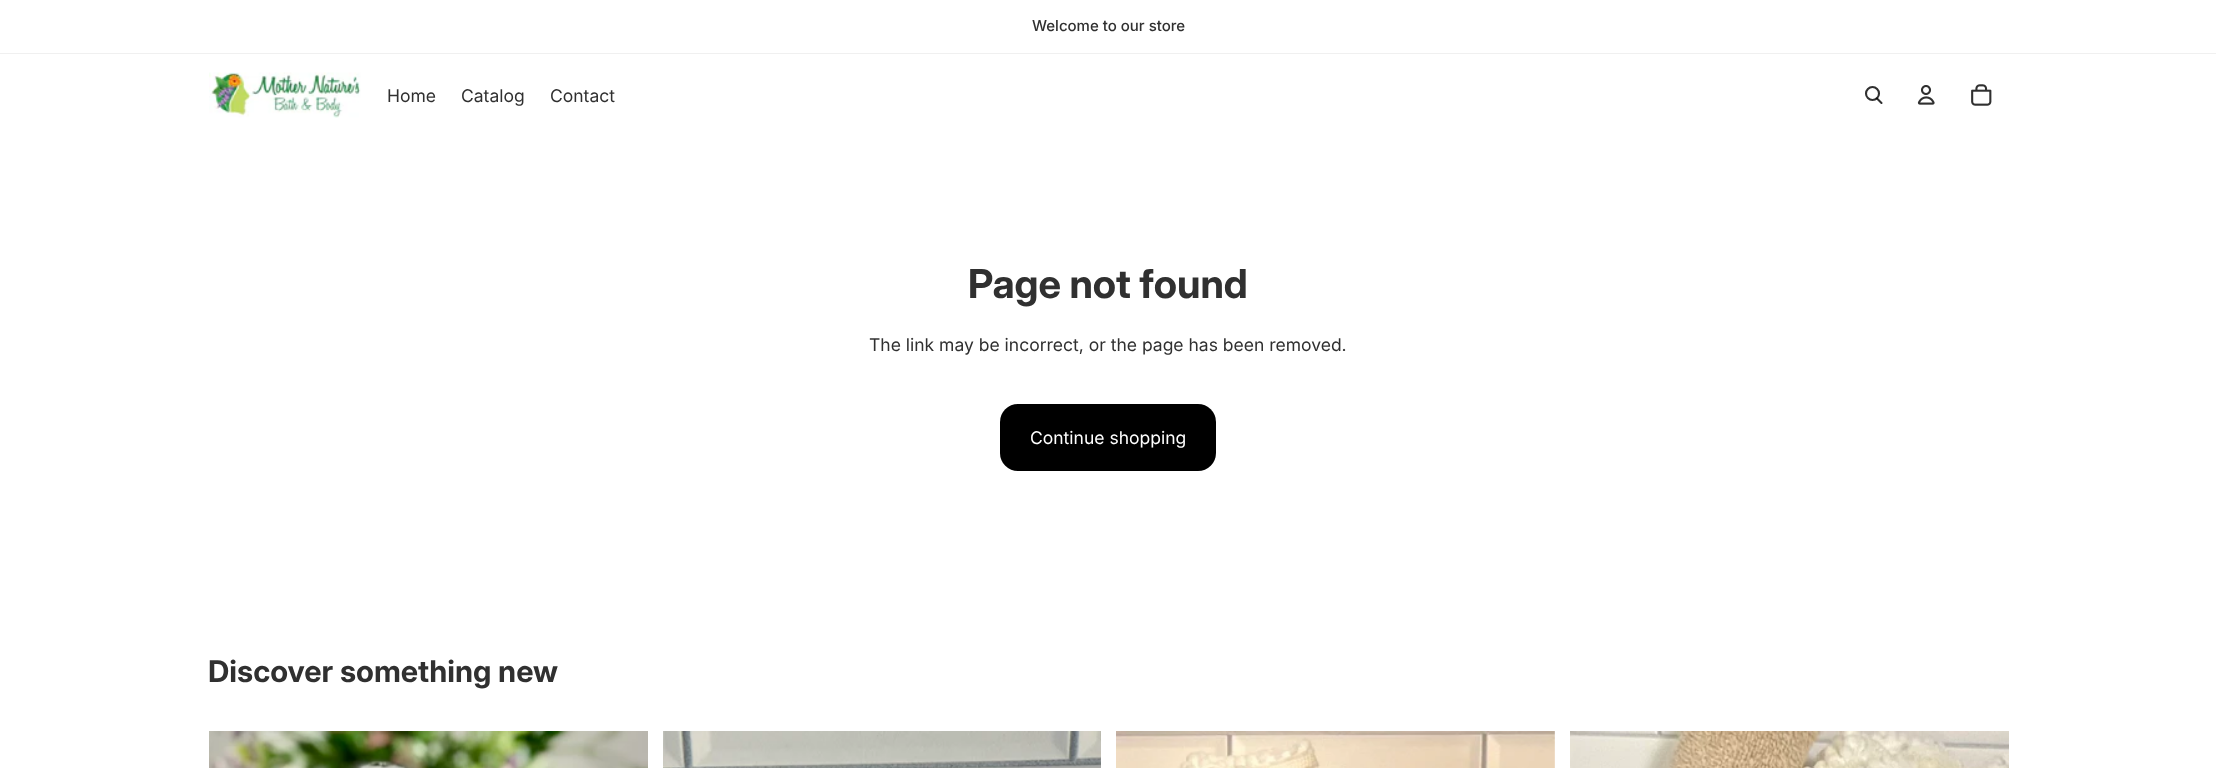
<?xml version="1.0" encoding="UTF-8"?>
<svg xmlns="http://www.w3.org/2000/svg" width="2216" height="768">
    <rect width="100%" height="100%" fill="#FFFFFF"/>
    <rect x="0" y="53" width="2216" height="1" fill="#F0F0F0"/>
    <text x="1032" y="31" font-family="Inter" font-size="15" font-weight="500" fill="#303030">Welcome to our store</text>
    <image x="209" y="72" width="152" height="46" href="img_01.png"/>
    <text x="387" y="102" font-family="Inter" font-size="17.5" fill="#303030">Home</text>
    <text x="461" y="102" font-family="Inter" font-size="17.5" fill="#303030">Catalog</text>
    <text x="550" y="102" font-family="Inter" font-size="17.5" fill="#303030">Contact</text>
    <circle cx="1872.5" cy="93.5" r="6.5" fill="none" stroke="#303030" stroke-width="2.1"/>
    <path d="M 1877 98.5 L 1881.5 103" fill="none" stroke="#000000" stroke-opacity="0.81" stroke-width="2.1" stroke-linecap="round" stroke-linejoin="round"/>
    <image x="1917" y="85" width="18" height="20" href="img_02.png"/>
    <image x="1971" y="84" width="21" height="22" href="img_03.png"/>
    <text x="968" y="298" font-family="Inter" font-size="40" font-weight="700" fill="#303030">Page not found</text>
    <text x="869" y="351" font-family="Inter" font-size="17.5" fill="#303030">The link may be incorrect, or the page has been removed.</text>
    <rect x="1000" y="404" width="216" height="67" rx="18" fill="#000000"/>
    <text x="1030" y="444" font-family="Inter" font-size="17.5" fill="#FFFFFF">Continue shopping</text>
    <text x="208" y="682" font-family="'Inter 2'" font-size="30" font-weight="700" fill="#303030">Discover something new</text>
    <image x="209" y="731" width="439" height="37" href="img_04.png"/>
    <image x="663" y="731" width="438" height="37" href="img_05.png"/>
    <image x="1116" y="731" width="439" height="37" href="img_06.png"/>
    <image x="1570" y="731" width="439" height="37" href="img_07.png"/>
</svg>
